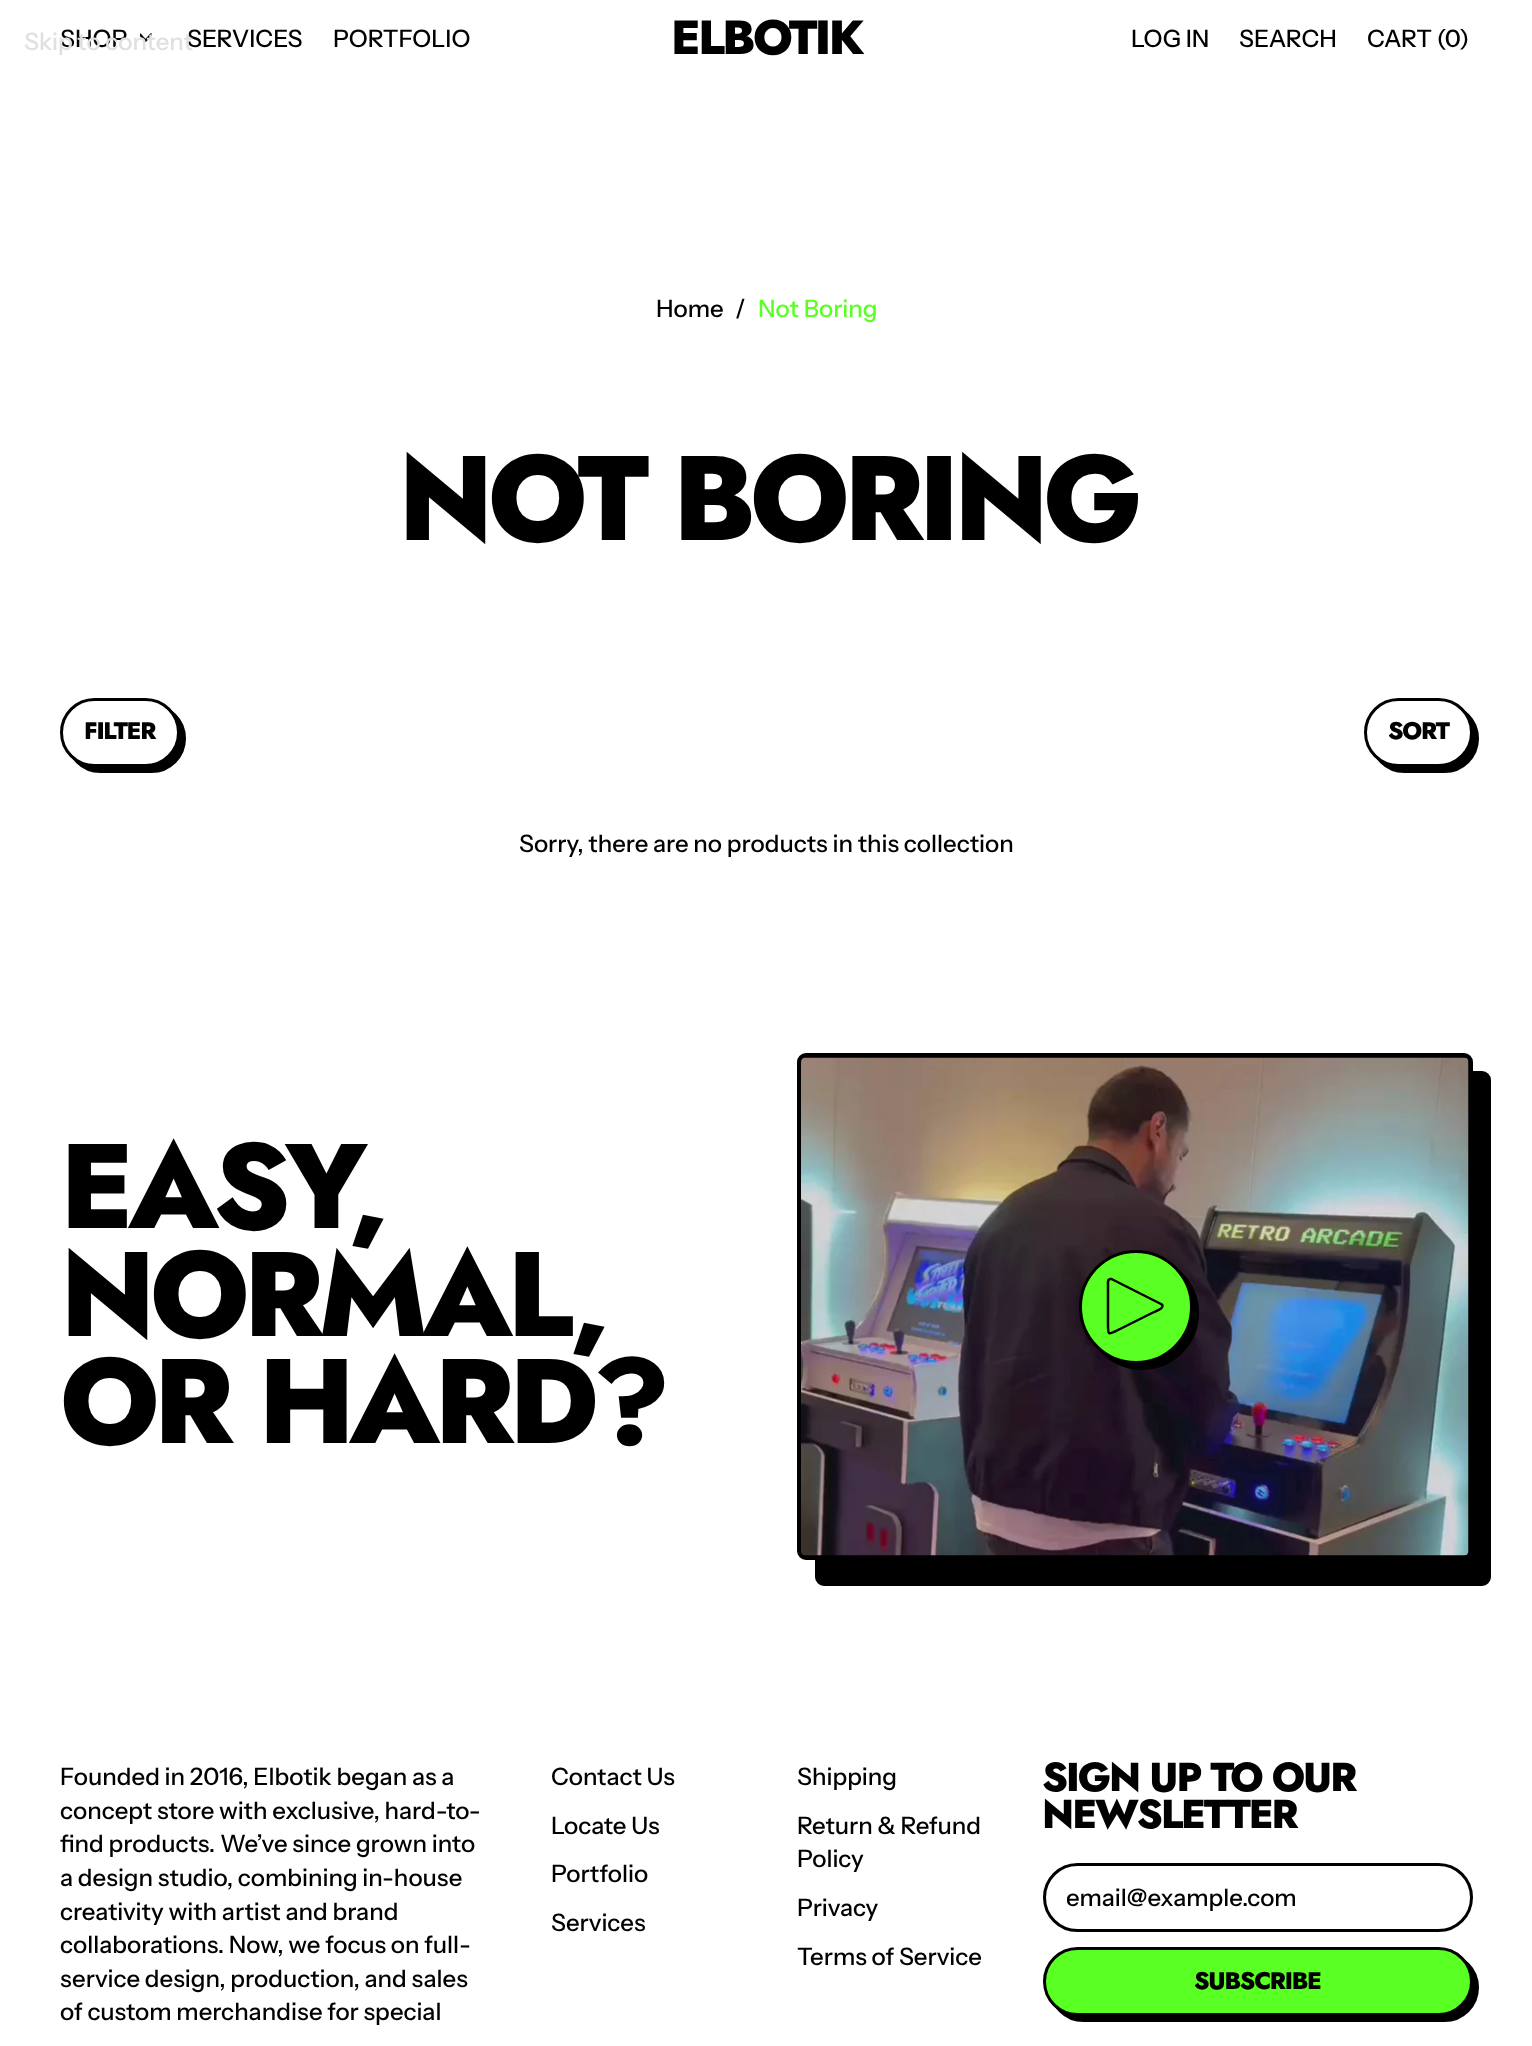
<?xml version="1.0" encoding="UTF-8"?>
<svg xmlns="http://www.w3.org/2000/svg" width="1532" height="2046">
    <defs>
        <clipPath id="clip1"><rect x="140" y="32" width="12" height="12"/></clipPath>
        <clipPath id="clip2"><rect x="1067" y="1883" width="382" height="30"/></clipPath>
    </defs>
    <rect width="100%" height="100%" fill="#FFFFFF"/>
    <text x="60" y="47" font-family="Instrument Sans" font-size="24" font-weight="500" fill="#000000">SHOP</text>
    <g clip-path="url(#clip1)">
        <path d="M 140 34.5 L 144.5 39.5 C 145.5 41 145.5 41 146.5 39.5 L 151 34.5" fill="none" stroke="#000000" stroke-width="2.5" stroke-linecap="round" stroke-linejoin="round"/>
    </g>
    <text x="187" y="47" font-family="Instrument Sans" font-size="24" font-weight="500" fill="#000000">SERVICES</text>
    <text x="333" y="47" font-family="Instrument Sans" font-size="24" font-weight="500" fill="#000000">PORTFOLIO</text>
    <text x="671" y="54" font-family="Jost" font-size="48" font-weight="800" letter-spacing="-2.5" fill="#000000">ELBOTIK</text>
    <text x="1131" y="47" font-family="Instrument Sans" font-size="24" font-weight="500" fill="#000000">LOG IN</text>
    <text x="1239" y="47" font-family="Instrument Sans" font-size="24" font-weight="500" fill="#000000">SEARCH</text>
    <text x="1367" y="47" font-family="Instrument Sans" font-size="24" font-weight="500" fill="#000000">CART (0)</text>
    <text x="24" y="50" font-family="Instrument Sans" font-size="24" font-weight="500" fill="#E0E0E0">Skip to content</text>
    <text x="656" y="317" font-family="Instrument Sans" font-size="24" font-weight="500" fill="#000000">Home</text>
    <text x="735" y="317" font-family="Instrument Sans" font-size="24" font-weight="500" fill="#000000">/</text>
    <text x="758" y="317" font-family="Instrument Sans" font-size="24" font-weight="500" fill="#5AFF24">Not Boring</text>
    <text x="398" y="540" font-family="Jost" font-size="120" font-weight="800" letter-spacing="-6" fill="#000000">NOT BORING</text>
    <rect x="67.5" y="705.5" width="117" height="66" rx="33" fill="#000000" stroke="#000000" stroke-width="3"/>
    <rect x="61.5" y="699.5" width="117" height="66" rx="33" fill="#FFFFFF" stroke="#000000" stroke-width="3"/>
    <text x="84" y="739" font-family="Jost" font-size="24" font-weight="800" letter-spacing="-1.25" fill="#000000">FILTER</text>
    <rect x="1371.5" y="705.5" width="106" height="66" rx="33" fill="#000000" stroke="#000000" stroke-width="3"/>
    <rect x="1365.5" y="699.5" width="106" height="66" rx="33" fill="#FFFFFF" stroke="#000000" stroke-width="3"/>
    <text x="1388" y="739" font-family="Jost" font-size="24" font-weight="800" letter-spacing="-1.25" fill="#000000">SORT</text>
    <text x="519" y="852" font-family="Instrument Sans" font-size="24" font-weight="500" fill="#000000">Sorry, there are no products in this collection</text>
    <text font-family="Jost" font-size="120" font-weight="800" letter-spacing="-6" fill="#000000">
        <tspan x="60" y="1228">EASY,</tspan>
        <tspan x="60" y="1336">NORMAL,</tspan>
        <tspan x="60" y="1443">OR HARD?</tspan>
    </text>
    <rect x="817.5" y="1073.5" width="671" height="510" rx="6.5" fill="#000000" stroke="#000000" stroke-width="5"/>
    <rect x="799.5" y="1055.5" width="671" height="502" rx="6.5" fill="none" stroke="#000000" stroke-width="5"/>
    <image x="801" y="1057" width="668" height="499" href="img_01.png"/>
    <circle cx="1142" cy="1313" r="55.5" fill="#000000" stroke="#000000" stroke-width="3"/>
    <circle cx="1136" cy="1307" r="55.5" fill="#5AFF24" stroke="#000000" stroke-width="3"/>
    <path d="M 1108 1281.5 C 1108 1280 1109.5 1278.5 1111.5 1279 L 1162 1304.5 L 1162.5 1306 C 1162.5 1309.5 1154.5 1311.5 1153 1312.5 L 1120 1329 C 1107.5 1335 1108 1336.5 1108 1322.5 Z" fill="none" stroke="#000000" stroke-width="2.5" stroke-linecap="round" stroke-linejoin="round"/>
    <text font-family="Instrument Sans" font-size="24" font-weight="500" fill="#000000">
        <tspan x="60" y="1785">Founded in 2016, Elbotik began as a</tspan>
        <tspan x="60" y="1819">concept store with exclusive, hard-to-</tspan>
        <tspan x="60" y="1852">find products. We’ve since grown into</tspan>
        <tspan x="60" y="1886">a design studio, combining in-house</tspan>
        <tspan x="60" y="1920">creativity with artist and brand</tspan>
        <tspan x="60" y="1953">collaborations. Now, we focus on full-</tspan>
        <tspan x="60" y="1987">service design, production, and sales</tspan>
        <tspan x="60" y="2020">of custom merchandise for special</tspan>
    </text>
    <text x="551" y="1785" font-family="Instrument Sans" font-size="24" font-weight="500" fill="#000000">Contact Us</text>
    <text x="551" y="1834" font-family="Instrument Sans" font-size="24" font-weight="500" fill="#000000">Locate Us</text>
    <text x="551" y="1882" font-family="Instrument Sans" font-size="24" font-weight="500" fill="#000000">Portfolio</text>
    <text x="551" y="1931" font-family="Instrument Sans" font-size="24" font-weight="500" fill="#000000">Services</text>
    <text x="797" y="1785" font-family="Instrument Sans" font-size="24" font-weight="500" fill="#000000">Shipping</text>
    <text font-family="Instrument Sans" font-size="24" font-weight="500" fill="#000000">
        <tspan x="797" y="1834">Return &amp; Refund</tspan>
        <tspan x="797" y="1867">Policy</tspan>
    </text>
    <text x="797" y="1916" font-family="Instrument Sans" font-size="24" font-weight="500" fill="#000000">Privacy</text>
    <text x="797" y="1965" font-family="Instrument Sans" font-size="24" font-weight="500" fill="#000000">Terms of Service</text>
    <text font-family="Jost" font-size="40.25" font-weight="800" letter-spacing="-2" fill="#000000">
        <tspan x="1042" y="1791">SIGN UP TO OUR</tspan>
        <tspan x="1042" y="1828">NEWSLETTER</tspan>
    </text>
    <rect x="1044.5" y="1864.5" width="427" height="66" rx="33" fill="none" stroke="#000000" stroke-width="3"/>
    <g clip-path="url(#clip2)">
        <text x="1066" y="1906" font-family="Instrument Sans" font-size="24" font-weight="500" fill="#000000">email@example.com</text>
    </g>
    <rect x="1050.5" y="1954.5" width="427" height="66" rx="33" fill="#000000" stroke="#000000" stroke-width="3"/>
    <rect x="1044.5" y="1948.5" width="427" height="66" rx="33" fill="#5AFF24" stroke="#000000" stroke-width="3"/>
    <text x="1194" y="1989" font-family="Jost" font-size="24" font-weight="800" letter-spacing="-1.25" fill="#000000">SUBSCRIBE</text>
</svg>
